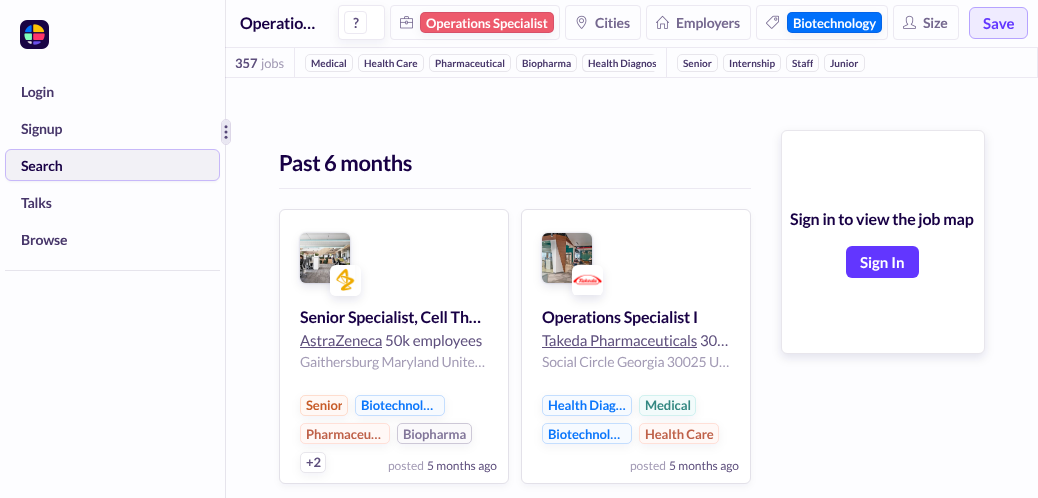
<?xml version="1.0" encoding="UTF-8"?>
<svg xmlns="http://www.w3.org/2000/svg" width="1038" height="498">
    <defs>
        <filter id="blur1" x="-50%" y="-200%" width="200%" height="500%"><feGaussianBlur stdDeviation="1"/></filter>
        <filter id="blur2" x="-50%" y="-200%" width="200%" height="500%"><feGaussianBlur stdDeviation="5"/></filter>
        <clipPath id="clip1"><rect x="305" y="54" width="351" height="18" rx="4"/></clipPath>
        <clipPath id="clip2"><rect x="792" y="50" width="21" height="26"/></clipPath>
        <filter id="blur3" x="-50%" y="-200%" width="200%" height="500%"><feGaussianBlur stdDeviation="3.5"/></filter>
        <clipPath id="clip3"><path d="M 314 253 H 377 V 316 H 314 Z M 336 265 H 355 C 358.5 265 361 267.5 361 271 V 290 C 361 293.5 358.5 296 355 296 H 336 C 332.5 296 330 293.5 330 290 V 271 C 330 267.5 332.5 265 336 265 Z" clip-rule="evenodd"/></clipPath>
        <clipPath id="clip4"><rect x="306" y="392" width="36" height="26"/></clipPath>
    </defs>
    <rect width="100%" height="100%" fill="#FDFDFF"/>
    <image x="20" y="20" width="29" height="29" href="img_01.png"/>
    <rect x="5" y="270" width="215" height="1" fill="#E6E4EC"/>
    <text x="21" y="97" font-family="Lato" font-size="14" font-weight="700" letter-spacing="-0.2" fill="#47366A">Login</text>
    <text x="21" y="134" font-family="Lato" font-size="14" font-weight="700" letter-spacing="-0.2" fill="#47366A">Signup</text>
    <rect x="6" y="152" width="213" height="30" rx="5" fill="#190445" fill-opacity="0.05" filter="url(#blur1)"/>
    <rect x="5" y="149" width="215" height="32" rx="6" fill="#F2F1F6"/>
    <rect x="5.5" y="149.5" width="214" height="31" rx="5.5" fill="none" stroke="#6236FF" stroke-opacity="0.3"/>
    <text x="21" y="171" font-family="Lato" font-size="14" font-weight="700" letter-spacing="-0.2" fill="#180045">Search</text>
    <text x="21" y="208" font-family="Lato" font-size="14" font-weight="700" letter-spacing="-0.2" fill="#47366A">Talks</text>
    <text x="21" y="245" font-family="Lato" font-size="14" font-weight="700" letter-spacing="-0.2" fill="#47366A">Browse</text>
    <rect x="225" y="78" width="1" height="420" fill="#E6E4EC"/>
    <rect x="221.5" y="119.5" width="9" height="25" rx="4.5" fill="none" stroke="#DDD7E8"/>
    <rect x="222" y="120" width="8" height="24" rx="4" fill="#E9E7F2"/>
    <circle cx="226" cy="126.7" r="1.5" fill="#574879"/>
    <circle cx="226" cy="132" r="1.5" fill="#574879"/>
    <circle cx="226" cy="137.3" r="1.5" fill="#574879"/>
    <rect x="225" y="0" width="1" height="78" fill="#E8E6EC"/>
    <rect x="225" y="47" width="813" height="1" fill="#ECE9F2"/>
    <rect x="225" y="47" width="1" height="1" fill="#D7D2E1"/>
    <text x="240" y="29" font-family="Lato" font-size="16" font-weight="700" letter-spacing="-0.2" fill="#180045">Operatio…</text>
    <rect x="390.5" y="5.5" width="169" height="34" rx="3.5" fill="none" stroke="#ECE9F2"/>
    <image x="400" y="16" width="13" height="13" href="img_02.png"/>
    <rect x="305.5" y="54.5" width="47" height="17" rx="4.5" fill="none" stroke="#E8E6EC"/>
    <rect x="358.5" y="54.5" width="65" height="17" rx="4.5" fill="none" stroke="#E8E6EC"/>
    <rect x="338" y="9" width="47" height="35" rx="4" fill="#190445" fill-opacity="0.05" filter="url(#blur2)"/>
    <rect x="338.5" y="5.5" width="46" height="34" rx="3.5" fill="#FFFFFF" stroke="#ECE9F2"/>
    <rect x="344.5" y="11.5" width="22" height="22" rx="3.5" fill="none" stroke="#ECE9F2"/>
    <text x="353" y="28" font-family="Lato" font-size="14" font-weight="700" letter-spacing="-0.2" fill="#5E4F7D">?</text>
    <rect x="420" y="15" width="134" height="21" rx="5" fill="#190445" fill-opacity="0.05" filter="url(#blur2)"/>
    <rect x="420" y="12" width="134" height="21" rx="5" fill="#ED5A6C"/>
    <rect x="420.5" y="12.5" width="133" height="20" rx="4.5" fill="none" stroke="#190445" stroke-opacity="0.1"/>
    <text x="426" y="28" font-family="Lato" font-size="13" font-weight="700" letter-spacing="-0.1" fill="#FFFFFF">Operations Specialist</text>
    <rect x="565.5" y="5.5" width="75" height="34" rx="3.5" fill="none" stroke="#ECE9F2"/>
    <image x="576" y="15" width="11" height="14" href="img_03.png"/>
    <text x="595" y="28" font-family="Lato" font-size="14" font-weight="700" letter-spacing="-0.2" fill="#75688F">Cities</text>
    <rect x="646.5" y="5.5" width="104" height="34" rx="3.5" fill="none" stroke="#ECE9F2"/>
    <image x="656" y="15" width="13" height="14" href="img_04.png"/>
    <text x="676" y="28" font-family="Lato" font-size="14" font-weight="700" letter-spacing="-0.2" fill="#75688F">Employers</text>
    <rect x="756.5" y="5.5" width="131" height="34" rx="3.5" fill="none" stroke="#ECE9F2"/>
    <image x="766" y="15" width="13" height="14" href="img_05.png"/>
    <rect x="787" y="15" width="95" height="21" rx="5" fill="#190445" fill-opacity="0.05" filter="url(#blur2)"/>
    <rect x="787" y="12" width="95" height="21" rx="5" fill="#0070FB"/>
    <rect x="787.5" y="12.5" width="94" height="20" rx="4.5" fill="none" stroke="#190445" stroke-opacity="0.1"/>
    <text x="793" y="28" font-family="Lato" font-size="13" font-weight="700" letter-spacing="-0.1" fill="#FFFFFF">Biotechnology</text>
    <rect x="893.5" y="5.5" width="65" height="34" rx="3.5" fill="none" stroke="#ECE9F2"/>
    <image x="903" y="15" width="13" height="14" href="img_06.png"/>
    <text x="923" y="28" font-family="Lato" font-size="14" font-weight="700" letter-spacing="-0.2" fill="#75688F">Size</text>
    <rect x="969" y="7" width="59" height="32" rx="6" fill="#EFEBFF"/>
    <rect x="969.5" y="7.5" width="58" height="31" rx="5.5" fill="none" stroke="#6236FF" stroke-opacity="0.4"/>
    <text x="983" y="29" font-family="Lato" font-size="15" font-weight="700" fill="#6236FF">Save</text>
    <rect x="225" y="77" width="813" height="1" fill="#ECE9F2"/>
    <rect x="225" y="77" width="1" height="1" fill="#D7D2E1"/>
    <rect x="294" y="48" width="1" height="30" fill="#ECE9F2"/>
    <text x="235" y="68" font-family="Lato" font-size="13" font-weight="700" letter-spacing="-0.1" fill="#5E4F7D">357</text>
    <text x="261" y="68" font-family="Lato" font-size="13" letter-spacing="-0.1" fill="#A39BB5">jobs</text>
    <rect x="666" y="48" width="1" height="30" fill="#ECE9F2"/>
    <text x="311" y="67" font-family="Lato" font-size="10" font-weight="700" fill="#47366A">Medical</text>
    <text x="364" y="67" font-family="Lato" font-size="10" font-weight="700" fill="#47366A">Health Care</text>
    <rect x="429.5" y="54.5" width="81" height="17" rx="4.5" fill="none" stroke="#E8E6EC"/>
    <text x="435" y="67" font-family="Lato" font-size="10" font-weight="700" fill="#47366A">Pharmaceutical</text>
    <rect x="516.5" y="54.5" width="60" height="17" rx="4.5" fill="none" stroke="#E8E6EC"/>
    <text x="522" y="67" font-family="Lato" font-size="10" font-weight="700" fill="#47366A">Biopharma</text>
    <path d="M 587 54 C 584 54 582 56 582 59 V 67 C 582 70 584 72 587 72 H 652 C 653 72 654 72 655 71 H 587 C 585 71 583 69 583 67 V 59 C 583 57 585 55 587 55 H 655 L 652 54 Z" fill="#E8E6EC"/>
    <g clip-path="url(#clip1)">
        <text x="588" y="67" font-family="Lato" font-size="10" font-weight="700" fill="#47366A">Health Diagnos</text>
    </g>
    <rect x="1037" y="48" width="1" height="30" fill="#ECE9F2"/>
    <rect x="677.5" y="54.5" width="40" height="17" rx="4.5" fill="none" stroke="#E8E6EC"/>
    <text x="683" y="67" font-family="Lato" font-size="10" font-weight="700" fill="#47366A">Senior</text>
    <rect x="723.5" y="54.5" width="57" height="17" rx="4.5" fill="none" stroke="#E8E6EC"/>
    <text x="729" y="67" font-family="Lato" font-size="10" font-weight="700" fill="#47366A">Internship</text>
    <rect x="786.5" y="54.5" width="32" height="17" rx="4.5" fill="none" stroke="#E8E6EC"/>
    <g clip-path="url(#clip2)">
        <text x="792" y="67" font-family="Lato" font-size="10" font-weight="700" fill="#47366A">Staff</text>
    </g>
    <rect x="824.5" y="54.5" width="40" height="17" rx="4.5" fill="none" stroke="#E8E6EC"/>
    <text x="830" y="67" font-family="Lato" font-size="10" font-weight="700" fill="#47366A">Junior</text>
    <rect x="279" y="188" width="472" height="1" fill="#ECE9F2"/>
    <text x="279" y="171" font-family="Lato" font-size="22" font-weight="700" letter-spacing="-0.4" fill="#180045">Past 6 months</text>
    <rect x="280" y="213" width="228" height="273" rx="5" fill="#190445" fill-opacity="0.05" filter="url(#blur3)"/>
    <rect x="279.5" y="209.5" width="229" height="274" rx="5.5" fill="#FFFFFF" stroke="#E3E1E9"/>
    <rect x="300" y="233" width="50" height="50" rx="6" fill="#190445" fill-opacity="0.2" filter="url(#blur1)"/>
    <rect x="300" y="237" width="50" height="50" rx="6" fill="#190445" fill-opacity="0.1" filter="url(#blur2)"/>
    <image x="300" y="233" width="50" height="50" href="img_07.png"/>
    <g clip-path="url(#clip3)">
        <rect x="330" y="269" width="31" height="31" rx="6" fill="#190445" fill-opacity="0.1" filter="url(#blur2)"/>
    </g>
    <image x="330" y="265" width="25" height="30" href="img_08.png"/>
    <text x="300" y="323" font-family="Lato" font-size="16" font-weight="700" letter-spacing="-0.2" fill="#180045">Senior Specialist, Cell Th…</text>
    <rect x="300" y="347" width="82" height="1" fill="#5E4F7D"/>
    <text x="300" y="346" font-family="Lato" font-size="15" letter-spacing="-0.1" fill="#5E4F7D">AstraZeneca 50k employees</text>
    <text x="300" y="367" font-family="Lato" font-size="14" letter-spacing="-0.2" fill="#A39BB5">Gaithersburg Maryland Unite…</text>
    <rect x="300" y="398" width="48" height="21" rx="5" fill="#190445" fill-opacity="0.05" filter="url(#blur2)"/>
    <rect x="300" y="395" width="48" height="21" rx="5" fill="#FFF8F5"/>
    <rect x="300.5" y="395.5" width="47" height="20" rx="4.5" fill="none" stroke="#FB7434" stroke-opacity="0.2"/>
    <rect x="355" y="398" width="90" height="21" rx="5" fill="#190445" fill-opacity="0.05" filter="url(#blur2)"/>
    <rect x="355" y="395" width="90" height="21" rx="5" fill="#F6FAFF"/>
    <rect x="355.5" y="395.5" width="89" height="20" rx="4.5" fill="none" stroke="#0070FB" stroke-opacity="0.2"/>
    <rect x="300" y="426" width="90" height="21" rx="5" fill="#190445" fill-opacity="0.05" filter="url(#blur2)"/>
    <g clip-path="url(#clip4)">
        <text x="306" y="410" font-family="Lato" font-size="13" font-weight="700" letter-spacing="-0.1" fill="#C75C29">Senior</text>
    </g>
    <rect x="300" y="423" width="90" height="21" rx="5" fill="#FFF8F6"/>
    <rect x="300.5" y="423.5" width="89" height="20" rx="4.5" fill="none" stroke="#FF8162" stroke-opacity="0.2"/>
    <rect x="397" y="426" width="75" height="21" rx="5" fill="#190445" fill-opacity="0.05" filter="url(#blur2)"/>
    <text x="361" y="410" font-family="Lato" font-size="13" font-weight="700" letter-spacing="-0.1" fill="#0B76FB">Biotechnol…</text>
    <text x="306" y="439" font-family="Lato" font-size="13" font-weight="700" letter-spacing="-0.1" fill="#BF6149">Pharmaceu…</text>
    <rect x="397.5" y="423.5" width="74" height="20" rx="4.5" fill="#FAF9FB" stroke="#CDC8D7"/>
    <text x="403" y="439" font-family="Lato" font-size="13" font-weight="700" letter-spacing="-0.1" fill="#82769A">Biopharma</text>
    <rect x="300" y="455" width="26" height="21" rx="5" fill="#190445" fill-opacity="0.05" filter="url(#blur2)"/>
    <rect x="300.5" y="452.5" width="25" height="20" rx="4.5" fill="#FFFFFF" stroke="#E8E6EC"/>
    <text x="306" y="467" font-family="Lato" font-size="13" font-weight="700" letter-spacing="-0.1" fill="#5E4F7D">+2</text>
    <text x="388" y="470" font-family="Lato" font-size="12" fill="#A39BB5">posted</text>
    <text x="427" y="470" font-family="Lato" font-size="12" fill="#5E4F7D">5 months ago</text>
    <rect x="522" y="213" width="228" height="273" rx="5" fill="#190445" fill-opacity="0.05" filter="url(#blur3)"/>
    <rect x="521.5" y="209.5" width="229" height="274" rx="5.5" fill="#FFFFFF" stroke="#E3E1E9"/>
    <rect x="542" y="233" width="50" height="50" rx="6" fill="#190445" fill-opacity="0.2" filter="url(#blur1)"/>
    <rect x="542" y="237" width="50" height="50" rx="6" fill="#190445" fill-opacity="0.1" filter="url(#blur2)"/>
    <image x="542" y="233" width="50" height="50" href="img_09.png"/>
    <rect x="572" y="269" width="31" height="31" rx="6" fill="#190445" fill-opacity="0.1" filter="url(#blur2)"/>
    <image x="572" y="265" width="31" height="30" href="img_10.png"/>
    <text x="542" y="323" font-family="Lato" font-size="16" font-weight="700" letter-spacing="-0.2" fill="#180045">Operations Specialist I</text>
    <text x="542" y="346" font-family="Lato" font-size="15" letter-spacing="-0.1" fill="#5E4F7D">Takeda Pharmaceuticals 30…</text>
    <rect x="542" y="347" width="155" height="1" fill="#5E4F7D"/>
    <text x="542" y="367" font-family="Lato" font-size="14" letter-spacing="-0.2" fill="#A39BB5">Social Circle Georgia 30025 U…</text>
    <rect x="542" y="398" width="90" height="21" rx="5" fill="#190445" fill-opacity="0.05" filter="url(#blur2)"/>
    <rect x="542" y="395" width="90" height="21" rx="5" fill="#F6FAFF"/>
    <rect x="542.5" y="395.5" width="89" height="20" rx="4.5" fill="none" stroke="#0070FB" stroke-opacity="0.2"/>
    <rect x="639" y="398" width="57" height="21" rx="5" fill="#190445" fill-opacity="0.05" filter="url(#blur2)"/>
    <rect x="639" y="395" width="57" height="21" rx="5" fill="#F2FBFB"/>
    <rect x="639.5" y="395.5" width="56" height="20" rx="4.5" fill="none" stroke="#4ECDC4" stroke-opacity="0.2"/>
    <rect x="542" y="426" width="90" height="21" rx="5" fill="#190445" fill-opacity="0.05" filter="url(#blur2)"/>
    <rect x="542" y="423" width="90" height="21" rx="5" fill="#F6FAFF"/>
    <rect x="542.5" y="423.5" width="89" height="20" rx="4.5" fill="none" stroke="#0070FB" stroke-opacity="0.2"/>
    <rect x="639" y="426" width="80" height="21" rx="5" fill="#190445" fill-opacity="0.05" filter="url(#blur2)"/>
    <text x="548" y="410" font-family="Lato" font-size="13" font-weight="700" letter-spacing="-0.1" fill="#0B76FB">Health Diag…</text>
    <text x="645" y="410" font-family="Lato" font-size="13" font-weight="700" letter-spacing="-0.1" fill="#348882">Medical</text>
    <text x="548" y="439" font-family="Lato" font-size="13" font-weight="700" letter-spacing="-0.1" fill="#0B76FB">Biotechnol…</text>
    <rect x="639" y="423" width="80" height="21" rx="5" fill="#FFF8F6"/>
    <rect x="639.5" y="423.5" width="79" height="20" rx="4.5" fill="none" stroke="#FF8162" stroke-opacity="0.2"/>
    <text x="645" y="439" font-family="Lato" font-size="13" font-weight="700" letter-spacing="-0.1" fill="#BF6149">Health Care</text>
    <text x="630" y="470" font-family="Lato" font-size="12" fill="#A39BB5">posted</text>
    <text x="669" y="470" font-family="Lato" font-size="12" fill="#5E4F7D">5 months ago</text>
    <rect x="781" y="134" width="204" height="224" rx="6" fill="#190445" fill-opacity="0.1" filter="url(#blur2)"/>
    <rect x="781.5" y="130.5" width="203" height="223" rx="5.5" fill="#FFFFFF" stroke="#E8E6EC"/>
    <text x="790" y="225" font-family="Lato" font-size="16" font-weight="700" letter-spacing="-0.2" fill="#180045">Sign in to view the job map</text>
    <rect x="846" y="246" width="73" height="32" rx="6" fill="#6236FF"/>
    <text x="860" y="268" font-family="Lato" font-size="15" font-weight="700" fill="#FFFFFF">Sign In</text>
</svg>
